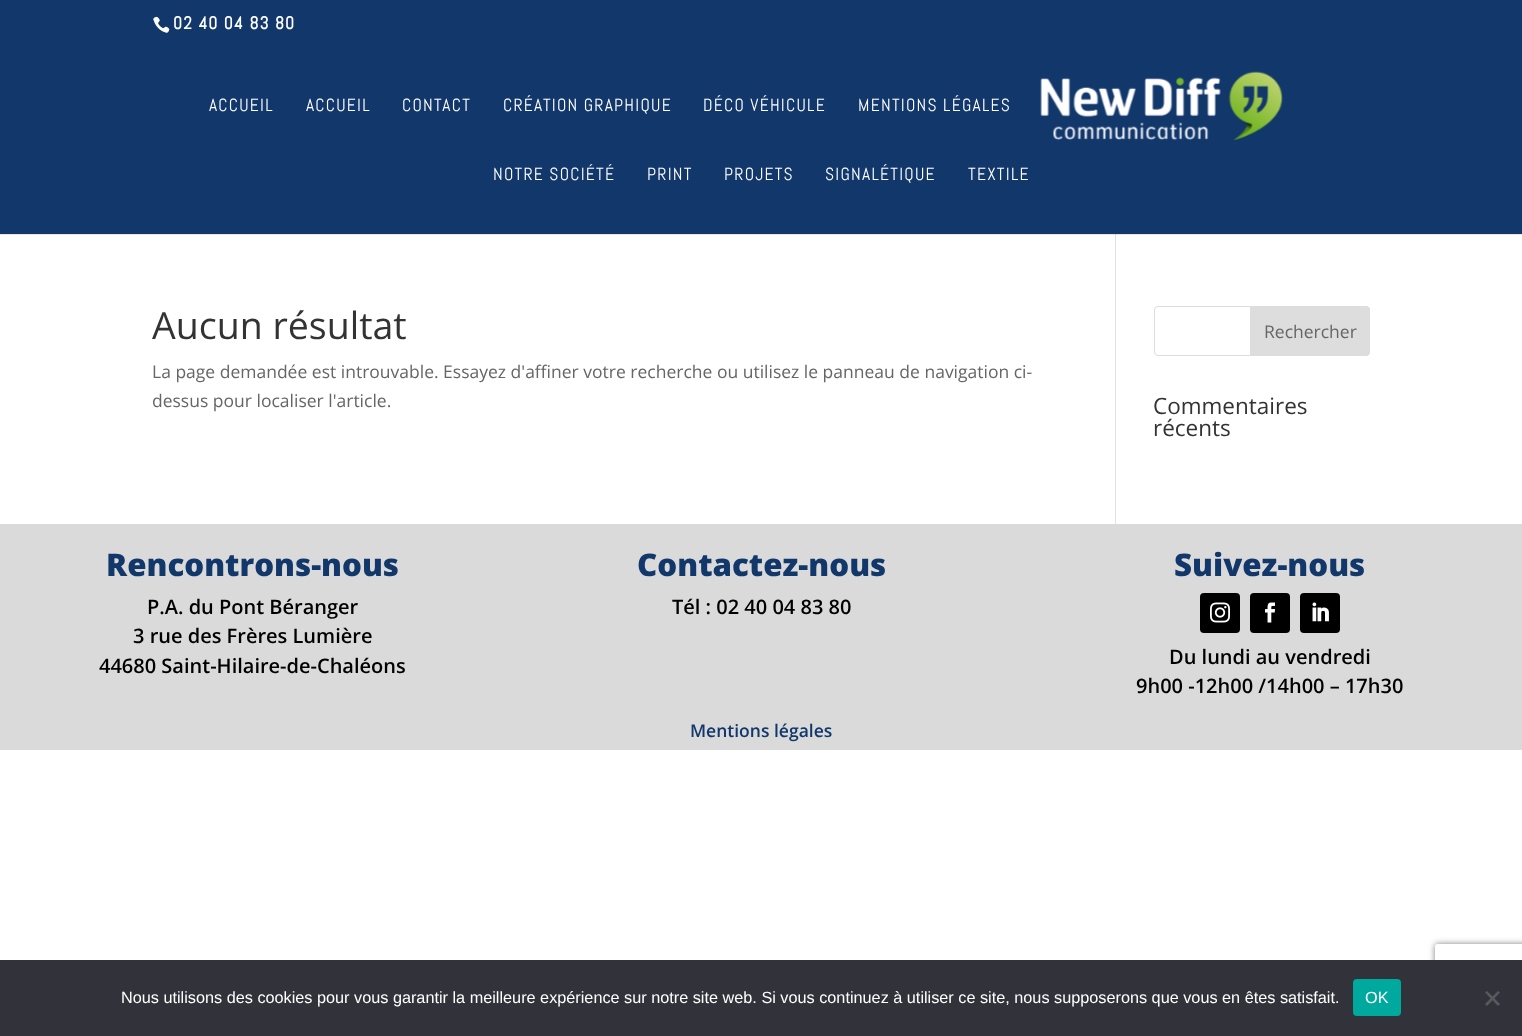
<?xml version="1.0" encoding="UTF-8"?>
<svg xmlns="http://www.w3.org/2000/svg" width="1522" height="1036">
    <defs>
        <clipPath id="clip1"><path d="M 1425 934 H 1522 V 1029 H 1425 Z M 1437.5 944 H 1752.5 C 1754 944 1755 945 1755 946.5 V 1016.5 C 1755 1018 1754 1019 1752.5 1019 H 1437.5 C 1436 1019 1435 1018 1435 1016.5 V 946.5 C 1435 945 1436 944 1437.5 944 Z" clip-rule="evenodd"/></clipPath>
        <filter id="blur1" x="-50%" y="-200%" width="200%" height="500%"><feGaussianBlur stdDeviation="3"/></filter>
    </defs>
    <rect width="100%" height="100%" fill="#FFFFFF"/>
    <rect x="0" y="0" width="1522" height="234" fill="#12376B"/>
    <image x="153" y="16" width="17" height="17" href="img_01.png"/>
    <text x="173" y="29" font-family="Abel" font-size="17.5" font-weight="700" letter-spacing="1.25" fill="#FFFFFF">02 40 04 83 80</text>
    <rect x="1115" y="234" width="1" height="290" fill="#E2E2E2"/>
    <path d="M 0 234 V 235 H 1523 V 46 H 1522 V 234 Z" fill="#000000" fill-opacity="0.1"/>
    <text x="209" y="111" font-family="Abel" font-size="17.5" letter-spacing="1.25" fill="#FFFFFF">ACCUEIL</text>
    <text x="306" y="111" font-family="Abel" font-size="17.5" letter-spacing="1.25" fill="#FFFFFF">ACCUEIL</text>
    <text x="402" y="111" font-family="Abel" font-size="17.5" letter-spacing="1.25" fill="#FFFFFF">CONTACT</text>
    <text x="503" y="111" font-family="Abel" font-size="17.5" letter-spacing="1.25" fill="#FFFFFF">CRÉATION GRAPHIQUE</text>
    <text x="703" y="111" font-family="Abel" font-size="17.5" letter-spacing="1.25" fill="#FFFFFF">DÉCO VÉHICULE</text>
    <text x="858" y="111" font-family="Abel" font-size="17.5" letter-spacing="1.25" fill="#FFFFFF">MENTIONS LÉGALES</text>
    <image x="1040" y="71" width="243" height="73" href="img_02.png"/>
    <text x="493" y="180" font-family="Abel" font-size="17.5" letter-spacing="1.25" fill="#FFFFFF">NOTRE SOCIÉTÉ</text>
    <text x="647" y="180" font-family="Abel" font-size="17.5" letter-spacing="1.25" fill="#FFFFFF">PRINT</text>
    <text x="724" y="180" font-family="Abel" font-size="17.5" letter-spacing="1.25" fill="#FFFFFF">PROJETS</text>
    <text x="825" y="180" font-family="Abel" font-size="17.5" letter-spacing="1.25" fill="#FFFFFF">SIGNALÉTIQUE</text>
    <text x="968" y="180" font-family="Abel" font-size="17.5" letter-spacing="1.25" fill="#FFFFFF">TEXTILE</text>
    <text x="152" y="339" font-family="Open Sans" font-size="37.5" fill="#333333">Aucun résultat</text>
    <text font-family="Open Sans" font-size="17.5" fill="#666666">
        <tspan x="152" y="378">La page demandée est introuvable. Essayez d'affiner votre recherche ou utilisez le panneau de navigation ci-</tspan>
        <tspan x="152" y="407">dessus pour localiser l'article.</tspan>
    </text>
    <rect x="1154.5" y="306.5" width="215" height="49" rx="3.5" fill="none" stroke="#DDDDDD"/>
    <path d="M 1250.5 306.5 H 1366 C 1368 306.5 1369.5 308 1369.5 310 V 352 C 1369.5 354 1368 355.5 1366 355.5 H 1250.5 Z" fill="#DDDDDD" stroke="#DDDDDD"/>
    <text x="1264" y="338" font-family="Open Sans" font-size="17.5" fill="#666666">Rechercher</text>
    <text font-family="Open Sans" font-size="22.5" fill="#333333">
        <tspan x="1153" y="414">Commentaires</tspan>
        <tspan x="1153" y="436">récents</tspan>
    </text>
    <rect x="0" y="524" width="1522" height="226" fill="#DADADA"/>
    <text x="106" y="576" font-family="Open Sans" font-size="31.25" font-weight="800" fill="#12376B">Rencontrons-nous</text>
    <text x="147" y="614" font-family="Open Sans" font-size="20" font-weight="600" fill="#000000">P.A. du Pont Béranger</text>
    <text x="133" y="643" font-family="Open Sans" font-size="20" font-weight="600" fill="#000000">3 rue des Frères Lumière</text>
    <text x="99" y="673" font-family="Open Sans" font-size="20" font-weight="600" fill="#000000">44680 Saint-Hilaire-de-Chaléons</text>
    <text x="637" y="576" font-family="Open Sans" font-size="31.25" font-weight="800" fill="#12376B">Contactez-nous</text>
    <text x="672" y="614" font-family="Open Sans" font-size="20" font-weight="600" fill="#000000">Tél : 02 40 04 83 80</text>
    <text x="690" y="737" font-family="Open Sans" font-size="17.5" font-weight="600" fill="#12376B">Mentions légales</text>
    <text x="1174" y="576" font-family="Open Sans" font-size="31.25" font-weight="800" fill="#12376B">Suivez-nous</text>
    <rect x="1200" y="593" width="40" height="40" rx="4" fill="#000000"/>
    <image x="1210" y="602" width="20" height="21" href="img_03.png"/>
    <rect x="1250" y="593" width="40" height="40" rx="4" fill="#000000"/>
    <image x="1265" y="602" width="10" height="21" href="img_04.png"/>
    <rect x="1300" y="593" width="40" height="40" rx="4" fill="#000000"/>
    <image x="1312" y="602" width="17" height="20" href="img_05.png"/>
    <text x="1169" y="664" font-family="Open Sans" font-size="20" font-weight="600" fill="#000000">Du lundi au vendredi</text>
    <text x="1136" y="693" font-family="Open Sans" font-size="20" font-weight="600" fill="#000000">9h00 -12h00 /14h00 – 17h30</text>
    <g clip-path="url(#clip1)">
        <rect x="1435" y="944" width="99" height="75" rx="2.5" fill="#808080" filter="url(#blur1)"/>
    </g>
    <rect x="0" y="960" width="1522" height="76" fill="#32323A"/>
    <text x="121" y="1003" font-family="Liberation Sans" font-size="16.25" fill="#FFFFFF">Nous utilisons des cookies pour vous garantir la meilleure expérience sur notre site web. Si vous continuez à utiliser ce site, nous supposerons que vous en êtes satisfait.</text>
    <rect x="1353" y="979" width="48" height="37" rx="4" fill="#00A99D"/>
    <text x="1365" y="1003" font-family="Liberation Sans" font-size="16.25" fill="#FFFFFF">OK</text>
    <path d="M 1498 991 L 1500 992.5 L 1487 1006 L 1485 1004 Z" fill="#59595D"/>
    <path d="M 1485 992.5 L 1487 991 L 1500 1004 L 1498 1006 Z" fill="#59595D"/>
</svg>
